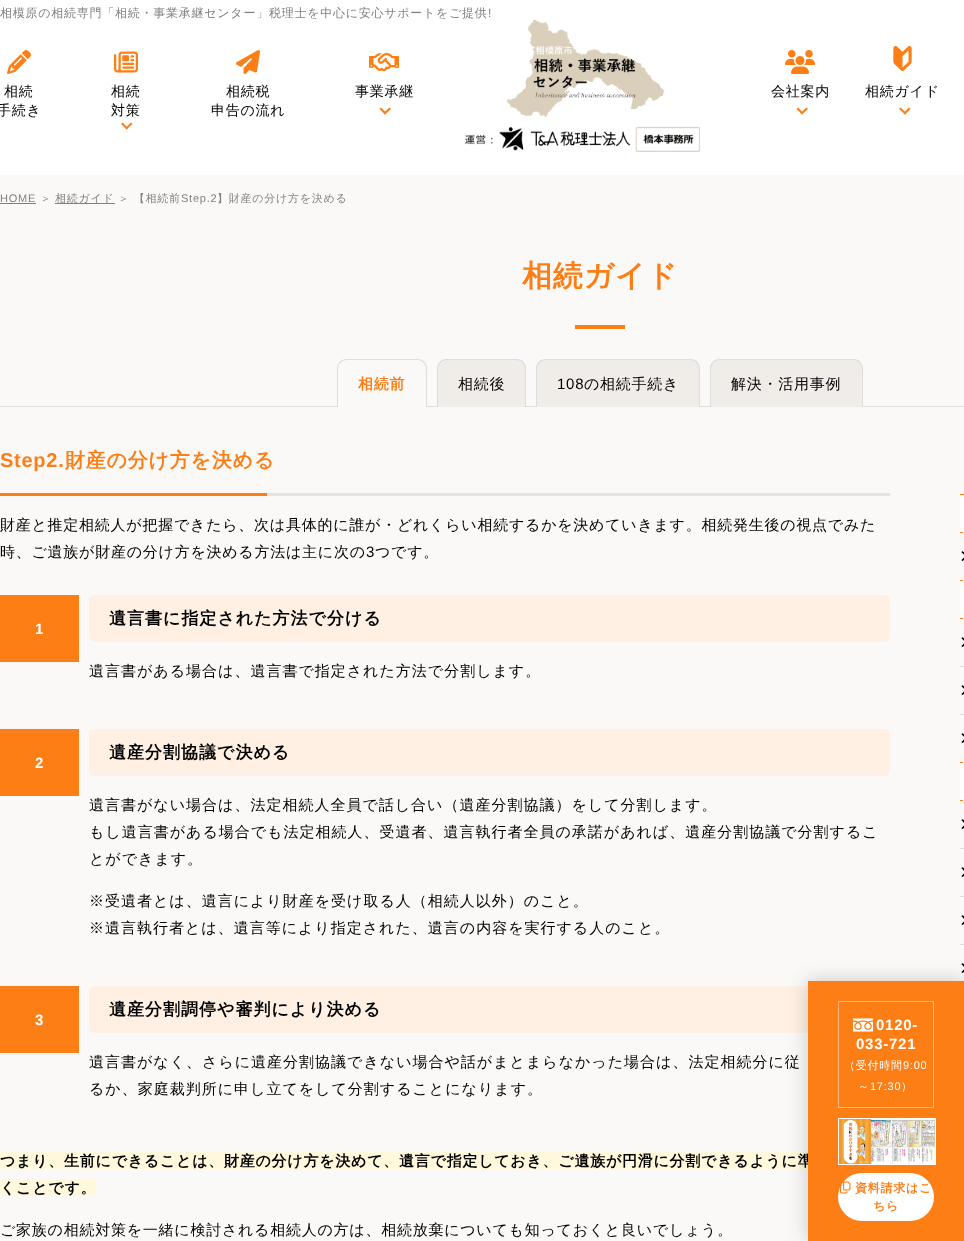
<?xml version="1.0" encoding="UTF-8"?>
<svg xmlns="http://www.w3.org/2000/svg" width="964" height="1241">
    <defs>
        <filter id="blur1" x="-50%" y="-200%" width="200%" height="500%"><feGaussianBlur stdDeviation="10"/></filter>
    </defs>
    <rect width="100%" height="100%" fill="#FFFFFF"/>
    <text x="0" y="17" font-family="WenQuanYi Zen Hei" font-size="12" font-weight="500" letter-spacing="0.75" fill="#808080">相模原の相続専門「相続・事業承継センター」税理士を中心に安心サポートをご提供</text>
    <text x="488" y="17" font-family="Liberation Sans" font-size="12" letter-spacing="0.75" fill="#808080">!</text>
    <image x="7" y="50" width="24" height="24" href="img_01.png"/>
    <text x="4" y="96" font-family="WenQuanYi Zen Hei" font-size="14" font-weight="500" letter-spacing="0.75" fill="#000000">相続</text>
    <text x="-3" y="115" font-family="WenQuanYi Zen Hei" font-size="14" font-weight="500" letter-spacing="0.75" fill="#000000">手続き</text>
    <image x="114" y="51" width="24" height="22" href="img_02.png"/>
    <text font-family="WenQuanYi Zen Hei" font-size="14" font-weight="500" letter-spacing="0.75" fill="#000000">
        <tspan x="111" y="96">相続</tspan>
        <tspan x="111" y="115">対策</tspan>
    </text>
    <path d="M 132.5 124 L 126.5 129.5 L 125.5 128 L 131 122.5 Z" fill="#FD7E14"/>
    <path d="M 128 128 L 126.5 129.5 L 121 124 L 122.5 122.5 Z" fill="#FD7E14"/>
    <image x="236" y="50" width="24" height="24" href="img_03.png"/>
    <text x="226" y="96" font-family="WenQuanYi Zen Hei" font-size="14" font-weight="500" letter-spacing="0.75" fill="#000000">相続税</text>
    <text x="211" y="115" font-family="WenQuanYi Zen Hei" font-size="14" font-weight="500" letter-spacing="0.75" fill="#000000">申告の流れ</text>
    <image x="369" y="53" width="30" height="19" href="img_04.png"/>
    <text x="355" y="96" font-family="WenQuanYi Zen Hei" font-size="14" font-weight="500" letter-spacing="0.75" fill="#000000">事業承継</text>
    <path d="M 391 109 L 385 114.5 L 383.5 113 L 389.5 107.5 Z" fill="#FD7E14"/>
    <path d="M 386.5 113 L 385 114.5 L 379.5 109 L 381 107.5 Z" fill="#FD7E14"/>
    <image x="465" y="20" width="235" height="132" href="img_05.png"/>
    <image x="785" y="50" width="30" height="24" href="img_06.png"/>
    <text x="771" y="96" font-family="WenQuanYi Zen Hei" font-size="14" font-weight="500" letter-spacing="0.75" fill="#000000">会社案内</text>
    <path d="M 808 109 L 802 114.5 L 800.5 113 L 806.5 107.5 Z" fill="#FD7E14"/>
    <path d="M 803.5 113 L 802 114.5 L 796.5 109 L 798 107.5 Z" fill="#FD7E14"/>
    <image x="893" y="46" width="19" height="25" href="img_07.png"/>
    <text x="865" y="96" font-family="WenQuanYi Zen Hei" font-size="14" font-weight="500" letter-spacing="0.75" fill="#000000">相続ガイド</text>
    <path d="M 910.5 109 L 905 114.5 L 903.5 113 L 909 107.5 Z" fill="#FD7E14"/>
    <path d="M 906.5 113 L 905 114.5 L 899 109 L 900.5 107.5 Z" fill="#FD7E14"/>
    <rect x="0" y="175" width="964" height="1066" fill="#FBF9F7"/>
    <text x="0" y="202" font-family="Liberation Sans" font-size="11" letter-spacing="0.75" fill="#808080">HOME</text>
    <rect x="0" y="203" width="36" height="1" fill="#808080"/>
    <text x="40" y="202" font-family="WenQuanYi Zen Hei" font-size="11" font-weight="500" letter-spacing="0.75" fill="#808080">＞</text>
    <rect x="55" y="203" width="60" height="1" fill="#808080"/>
    <text x="55" y="202" font-family="WenQuanYi Zen Hei" font-size="11" font-weight="500" letter-spacing="0.75" fill="#808080">相続ガイド</text>
    <text x="118" y="202" font-family="WenQuanYi Zen Hei" font-size="11" font-weight="500" letter-spacing="0.75" fill="#808080">＞ 【相続前</text>
    <text x="181" y="202" font-family="Liberation Sans" font-size="11" letter-spacing="0.75" fill="#808080">Step.2</text>
    <text x="217" y="202" font-family="WenQuanYi Zen Hei" font-size="11" font-weight="500" letter-spacing="0.75" fill="#808080">】財産の分け方を決める</text>
    <text x="522" y="286" font-family="WenQuanYi Zen Hei" font-size="30" font-weight="700" letter-spacing="0.75" fill="#FD7E15">相続ガイド</text>
    <rect x="575" y="325" width="50" height="4" fill="#FD7E14"/>
    <rect x="0" y="406" width="964" height="1" fill="#DDDDDD"/>
    <path d="M 347 359 H 417 C 422.5 359 427 363.5 427 369 V 407 H 337 V 369 C 337 363.5 341.5 359 347 359 Z" fill="#FBF9F7"/>
    <path d="M 347 359 H 417 C 423 359 427 363 427 369 V 407 H 337 V 369 C 337 363 341 359 347 359 Z M 347 360 H 417 C 422 360 426 364 426 369 V 407 H 338 V 369 C 338 364 342 360 347 360 Z" fill="#DDDDDD" fill-rule="evenodd"/>
    <text x="358" y="389" font-family="WenQuanYi Zen Hei" font-size="15" font-weight="700" letter-spacing="0.75" fill="#FD7E15">相続前</text>
    <path d="M 447 359 H 516 C 521.5 359 526 363.5 526 369 V 407 H 437 V 369 C 437 363.5 441.5 359 447 359 Z" fill="#F0ECE8"/>
    <path d="M 447 359 H 516 C 522 359 526 363 526 369 V 407 H 437 V 369 C 437 363 441 359 447 359 Z M 447 360 H 516 C 521 360 525 364 525 369 V 407 H 438 V 369 C 438 364 442 360 447 360 Z" fill="#DDDDDD" fill-rule="evenodd"/>
    <text x="458" y="389" font-family="WenQuanYi Zen Hei" font-size="15" font-weight="500" letter-spacing="0.75" fill="#000000">相続後</text>
    <path d="M 546 359 H 690 C 695.5 359 700 363.5 700 369 V 407 H 536 V 369 C 536 363.5 540.5 359 546 359 Z" fill="#F0ECE8"/>
    <path d="M 546 359 H 690 C 696 359 700 363 700 369 V 407 H 536 V 369 C 536 363 540 359 546 359 Z M 546 360 H 690 C 695 360 699 364 699 369 V 407 H 537 V 369 C 537 364 541 360 546 360 Z" fill="#DDDDDD" fill-rule="evenodd"/>
    <text x="557" y="389" font-family="Liberation Sans" font-size="15" letter-spacing="0.75" fill="#000000">108</text>
    <text x="584" y="389" font-family="WenQuanYi Zen Hei" font-size="15" font-weight="500" letter-spacing="0.75" fill="#000000">の相続手続き</text>
    <path d="M 720 359 H 853 C 858.5 359 863 363.5 863 369 V 407 H 710 V 369 C 710 363.5 714.5 359 720 359 Z" fill="#F0ECE8"/>
    <path d="M 720 359 H 853 C 859 359 863 363 863 369 V 407 H 710 V 369 C 710 363 714 359 720 359 Z M 720 360 H 853 C 858 360 862 364 862 369 V 407 H 711 V 369 C 711 364 715 360 720 360 Z" fill="#DDDDDD" fill-rule="evenodd"/>
    <text x="731" y="389" font-family="WenQuanYi Zen Hei" font-size="15" font-weight="500" letter-spacing="0.75" fill="#000000">解決・活用事例</text>
    <rect x="267" y="493" width="623" height="3" fill="#E3E3E3"/>
    <text x="0" y="467" font-family="Liberation Sans" font-size="20" font-weight="700" letter-spacing="0.75" fill="#FD7E15">Step2.</text>
    <text x="65" y="467" font-family="WenQuanYi Zen Hei" font-size="20" font-weight="700" letter-spacing="0.75" fill="#FD7E15">財産の分け方を決める</text>
    <rect x="0" y="493" width="267" height="3" fill="#FD7E14"/>
    <text font-family="WenQuanYi Zen Hei" font-size="15" font-weight="500" letter-spacing="0.75" fill="#000000">
        <tspan x="0" y="530">財産と推定相続人が把握できたら、次は具体的に誰が・どれくらい相続するかを決めていきます。相続発生後の視点でみた</tspan>
        <tspan x="0" y="557">時、ご遺族が財産の分け方を決める方法は主に次の</tspan>
    </text>
    <text x="366" y="557" font-family="Liberation Sans" font-size="15" letter-spacing="0.75" fill="#000000">3</text>
    <text x="375" y="557" font-family="WenQuanYi Zen Hei" font-size="15" font-weight="500" letter-spacing="0.75" fill="#000000">つです。</text>
    <rect x="0" y="595" width="79" height="67" fill="#FD7E15"/>
    <text x="35" y="634" font-family="Liberation Sans" font-size="15" font-weight="700" letter-spacing="1" fill="#FFFFFF">1</text>
    <rect x="89" y="595" width="801" height="47" rx="5" fill="#FFF0E3"/>
    <text x="109" y="624" font-family="WenQuanYi Zen Hei" font-size="17" font-weight="700" letter-spacing="1" fill="#000000">遺言書に指定された方法で分ける</text>
    <text x="89" y="676" font-family="WenQuanYi Zen Hei" font-size="15" font-weight="500" letter-spacing="1" fill="#000000">遺言書がある場合は、遺言書で指定された方法で分割します。</text>
    <rect x="0" y="729" width="79" height="67" fill="#FD7E15"/>
    <text x="35" y="768" font-family="Liberation Sans" font-size="15" font-weight="700" letter-spacing="1" fill="#FFFFFF">2</text>
    <rect x="89" y="729" width="801" height="47" rx="5" fill="#FFF0E3"/>
    <text x="109" y="758" font-family="WenQuanYi Zen Hei" font-size="17" font-weight="700" letter-spacing="1" fill="#000000">遺産分割協議で決める</text>
    <text font-family="WenQuanYi Zen Hei" font-size="15" font-weight="500" letter-spacing="1" fill="#000000">
        <tspan x="89" y="810">遺言書がない場合は、法定相続人全員で話し合い（遺産分割協議）をして分割します。</tspan>
        <tspan x="89" y="837">もし遺言書がある場合でも法定相続人、受遺者、遺言執行者全員の承諾があれば、遺産分割協議で分割するこ</tspan>
        <tspan x="89" y="864">とができます。</tspan>
    </text>
    <text font-family="WenQuanYi Zen Hei" font-size="15" font-weight="500" letter-spacing="1" fill="#000000">
        <tspan x="89" y="906">※受遺者とは、遺言により財産を受け取る人（相続人以外）のこと。</tspan>
        <tspan x="89" y="933">※遺言執行者とは、遺言等により指定された、遺言の内容を実行する人のこと。</tspan>
    </text>
    <rect x="0" y="986" width="79" height="67" fill="#FD7E15"/>
    <text x="35" y="1025" font-family="Liberation Sans" font-size="15" font-weight="700" letter-spacing="1" fill="#FFFFFF">3</text>
    <rect x="89" y="986" width="801" height="47" rx="5" fill="#FFF0E3"/>
    <text x="109" y="1015" font-family="WenQuanYi Zen Hei" font-size="17" font-weight="700" letter-spacing="1" fill="#000000">遺産分割調停や審判により決める</text>
    <text font-family="WenQuanYi Zen Hei" font-size="15" font-weight="500" letter-spacing="1" fill="#000000">
        <tspan x="89" y="1067">遺言書がなく、さらに遺産分割協議できない場合や話がまとまらなかった場合は、法定相続分に従</tspan>
        <tspan x="89" y="1094">るか、家庭裁判所に申し立てをして分割することになります。</tspan>
    </text>
    <rect x="0" y="1152" width="808" height="17" fill="#FFF8DC"/>
    <text x="0" y="1166" font-family="WenQuanYi Zen Hei" font-size="15" font-weight="700" letter-spacing="0.75" fill="#000000">つまり、生前にできることは、財産の分け方を決めて、遺言で指定しておき、ご遺族が円滑に分割できるように準</text>
    <rect x="0" y="1179" width="96" height="17" fill="#FFF8DC"/>
    <text x="0" y="1193" font-family="WenQuanYi Zen Hei" font-size="15" font-weight="700" letter-spacing="0.75" fill="#000000">くことです。</text>
    <text x="0" y="1235" font-family="WenQuanYi Zen Hei" font-size="15" font-weight="500" letter-spacing="0.75" fill="#000000">ご家族の相続対策を一緒に検討される相続人の方は、相続放棄についても知っておくと良いでしょう。</text>
    <rect x="960" y="494" width="4" height="39" fill="#FFFFFF"/>
    <path d="M 960 532.5 H 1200" fill="none" stroke="#FD7E14" stroke-dasharray="3 2.04"/>
    <rect x="960" y="494" width="4" height="1" fill="#FD7E14"/>
    <image x="961" y="551" width="3" height="10" href="img_08.png"/>
    <rect x="960" y="580" width="4" height="39" fill="#FFFFFF"/>
    <path d="M 960 580.5 H 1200 M 960 618.5 H 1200" fill="none" stroke="#FD7E14" stroke-dasharray="3 2.04"/>
    <rect x="960" y="666" width="4" height="1" fill="#DDDDDD"/>
    <image x="961" y="637" width="3" height="10" href="img_08.png"/>
    <rect x="960" y="714" width="4" height="1" fill="#DDDDDD"/>
    <image x="961" y="685" width="3" height="10" href="img_08.png"/>
    <image x="961" y="733" width="3" height="10" href="img_08.png"/>
    <rect x="960" y="762" width="4" height="39" fill="#FFFFFF"/>
    <path d="M 960 762.5 H 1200 M 960 800.5 H 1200" fill="none" stroke="#FD7E14" stroke-dasharray="3 2.04"/>
    <rect x="960" y="848" width="4" height="1" fill="#DDDDDD"/>
    <image x="961" y="819" width="3" height="10" href="img_08.png"/>
    <rect x="960" y="896" width="4" height="1" fill="#DDDDDD"/>
    <image x="961" y="867" width="3" height="10" href="img_08.png"/>
    <rect x="960" y="944" width="4" height="1" fill="#DDDDDD"/>
    <image x="961" y="915" width="3" height="10" href="img_08.png"/>
    <image x="961" y="963" width="3" height="10" href="img_08.png"/>
    <rect x="808" y="981" width="156" height="260" fill="#000000" fill-opacity="0.2" filter="url(#blur1)"/>
    <rect x="808" y="981" width="156" height="260" fill="#FD7E14"/>
    <rect x="838.5" y="1001.5" width="95" height="106" fill="none" stroke="#FFB97F"/>
    <image x="853" y="1018" width="20" height="14" href="img_09.png"/>
    <text x="876" y="1030" font-family="Liberation Sans" font-size="15" font-weight="700" letter-spacing="0.75" fill="#FFFFFF">0120-</text>
    <text x="856" y="1049" font-family="Liberation Sans" font-size="15" font-weight="700" letter-spacing="0.75" fill="#FFFFFF">033-721</text>
    <text x="844" y="1069" font-family="WenQuanYi Zen Hei" font-size="11" font-weight="500" letter-spacing="0.75" fill="#FFFFFF">（受付時間</text>
    <text x="903" y="1069" font-family="Liberation Sans" font-size="11" letter-spacing="0.75" fill="#FFFFFF">9:00</text>
    <text x="858" y="1090" font-family="WenQuanYi Zen Hei" font-size="11" font-weight="500" letter-spacing="0.75" fill="#FFFFFF">～</text>
    <text x="870" y="1090" font-family="Liberation Sans" font-size="11" letter-spacing="0.75" fill="#FFFFFF">17:30</text>
    <text x="901" y="1090" font-family="WenQuanYi Zen Hei" font-size="11" font-weight="500" letter-spacing="0.75" fill="#FFFFFF">）</text>
    <rect x="838.5" y="1118.5" width="97" height="46" fill="none" stroke="#FFFFFF"/>
    <image x="838" y="1118" width="97" height="46" href="img_10.png"/>
    <rect x="838" y="1173" width="96" height="48" rx="24" fill="#FFFFFF"/>
    <image x="840" y="1181" width="11" height="13" href="img_11.png"/>
    <text x="855" y="1192" font-family="WenQuanYi Zen Hei" font-size="12" font-weight="700" letter-spacing="0.75" fill="#FD7E15">資料請求はこ</text>
    <text x="873" y="1210" font-family="WenQuanYi Zen Hei" font-size="12" font-weight="700" letter-spacing="0.75" fill="#FD7E15">ちら</text>
</svg>
